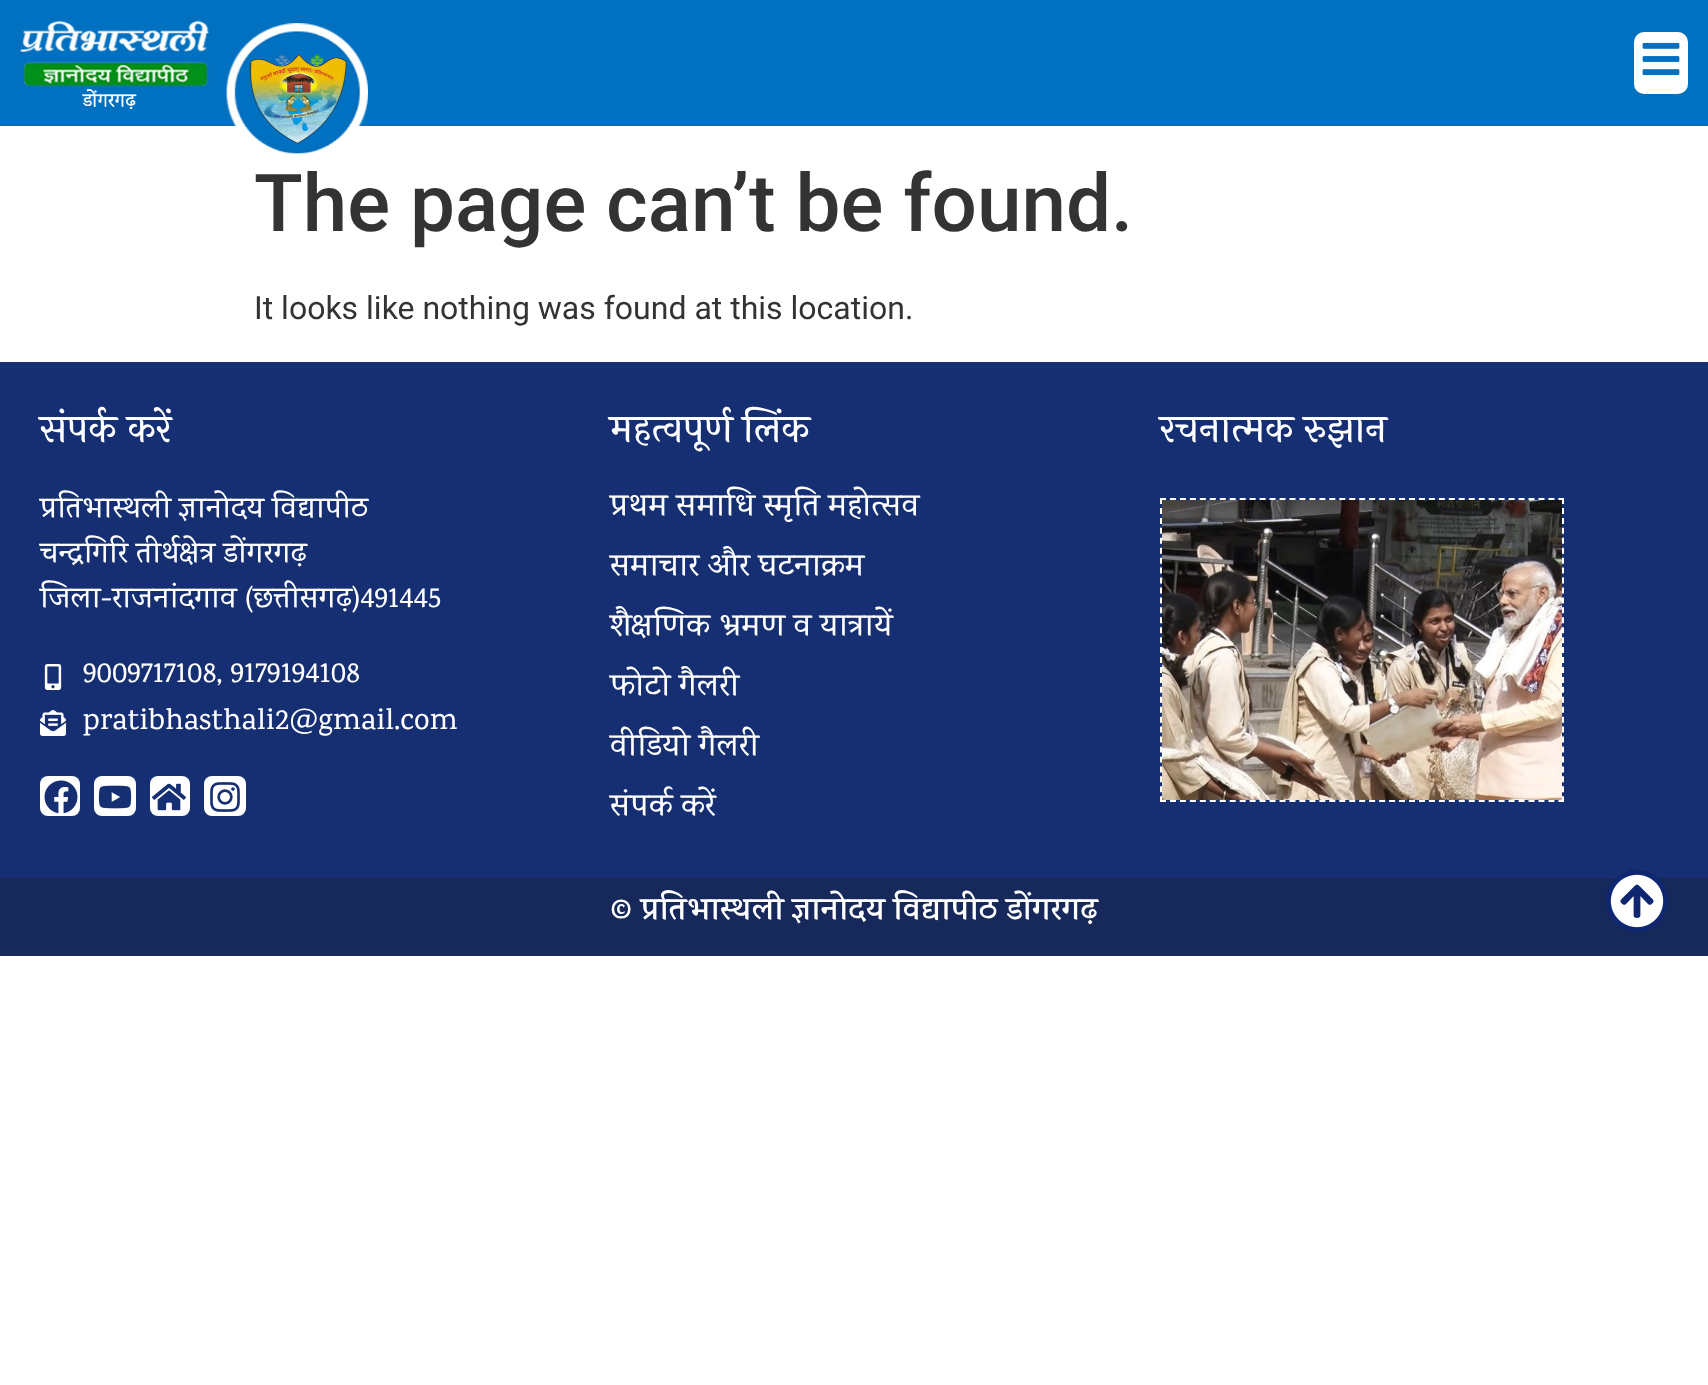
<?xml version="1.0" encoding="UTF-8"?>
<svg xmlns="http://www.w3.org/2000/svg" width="1708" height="1385">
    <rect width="100%" height="100%" fill="#FFFFFF"/>
    <rect x="0" y="0" width="1708" height="126" fill="#0070C0"/>
    <image x="20" y="20" width="348" height="134" href="img_01.png"/>
    <rect x="1634" y="32" width="54" height="62" rx="10" fill="#FFFFFF"/>
    <image x="1642" y="42" width="38" height="34" href="img_02.png"/>
    <text x="254" y="231" font-family="Roboto" font-size="80" font-weight="500" fill="#333333">The page can’t be found.</text>
    <text x="254" y="319" font-family="Roboto" font-size="32" fill="#333333">It looks like nothing was found at this location.</text>
    <rect x="0" y="362" width="1708" height="516" fill="#152F72"/>
    <text x="40" y="442" font-family="Laila" font-size="38" font-weight="500" fill="#FFFFFF">संपर्क करें</text>
    <text font-family="Karma" font-size="30" font-weight="500" fill="#FFFFFF">
        <tspan x="40" y="517">प्रतिभास्थली ज्ञानोदय विद्यापीठ</tspan>
        <tspan x="40" y="562">चन्द्रगिरि तीर्थक्षेत्र डोंगरगढ़</tspan>
        <tspan x="40" y="607">जिला-राजनांदगाव (छत्तीसगढ़)491445</tspan>
    </text>
    <image x="44" y="664" width="18" height="26" href="img_03.png"/>
    <text x="83" y="682" font-family="Karma" font-size="30" font-weight="500" fill="#FFFFFF">9009717108, 9179194108</text>
    <image x="40" y="710" width="26" height="26" href="img_04.png"/>
    <text x="83" y="729" font-family="Karma" font-size="30" font-weight="500" fill="#FFFFFF">pratibhasthali2@gmail.com</text>
    <rect x="40" y="776" width="40" height="40" rx="8" fill="#FFFFFF"/>
    <image x="44" y="780" width="34" height="34" href="img_05.png"/>
    <rect x="94" y="776" width="42" height="40" rx="8" fill="#FFFFFF"/>
    <image x="98" y="785" width="34" height="24" href="img_06.png"/>
    <rect x="150" y="776" width="40" height="40" rx="8" fill="#FFFFFF"/>
    <image x="152" y="783" width="34" height="28" href="img_07.png"/>
    <rect x="204" y="776" width="42" height="40" rx="8" fill="#FFFFFF"/>
    <image x="210" y="782" width="30" height="30" href="img_08.png"/>
    <text x="610" y="442" font-family="Laila" font-size="38" font-weight="500" fill="#FFFFFF">महत्वपूर्ण लिंक</text>
    <text font-family="Karma" font-size="32" font-weight="500" fill="#FFFFFF">
        <tspan x="610" y="515">प्रथम समाधि स्मृति महोत्सव</tspan>
        <tspan x="610" y="575">समाचार और घटनाक्रम</tspan>
        <tspan x="610" y="635">शैक्षणिक भ्रमण व यात्रायें</tspan>
        <tspan x="610" y="695">फोटो गैलरी</tspan>
        <tspan x="610" y="755">वीडियो गैलरी</tspan>
        <tspan x="610" y="815">संपर्क करें</tspan>
    </text>
    <text x="1160" y="442" font-family="Laila" font-size="38" font-weight="500" fill="#FFFFFF">रचनात्मक रुझान</text>
    <path d="M 1160 499 H 1564" fill="none" stroke="#FFFFFF" stroke-width="2" stroke-dasharray="6 3.96"/>
    <path d="M 1563 498 V 802" fill="none" stroke="#FFFFFF" stroke-width="2" stroke-dasharray="6 3.94"/>
    <path d="M 1160 801 H 1564" fill="none" stroke="#FFFFFF" stroke-width="2" stroke-dasharray="6 3.96"/>
    <path d="M 1161 498 V 802" fill="none" stroke="#FFFFFF" stroke-width="2" stroke-dasharray="6 3.94"/>
    <image x="1162" y="500" width="400" height="300" href="img_09.png"/>
    <rect x="0" y="878" width="1708" height="78" fill="#16295A"/>
    <text x="610" y="919" font-family="Karma" font-size="32" font-weight="600" fill="#FFFFFF">© प्रतिभास्थली ज्ञानोदय विद्यापीठ डोंगरगढ़</text>
    <circle cx="1637" cy="901" r="31" fill="#0E2770"/>
    <image x="1610" y="874" width="54" height="54" href="img_10.png"/>
</svg>
